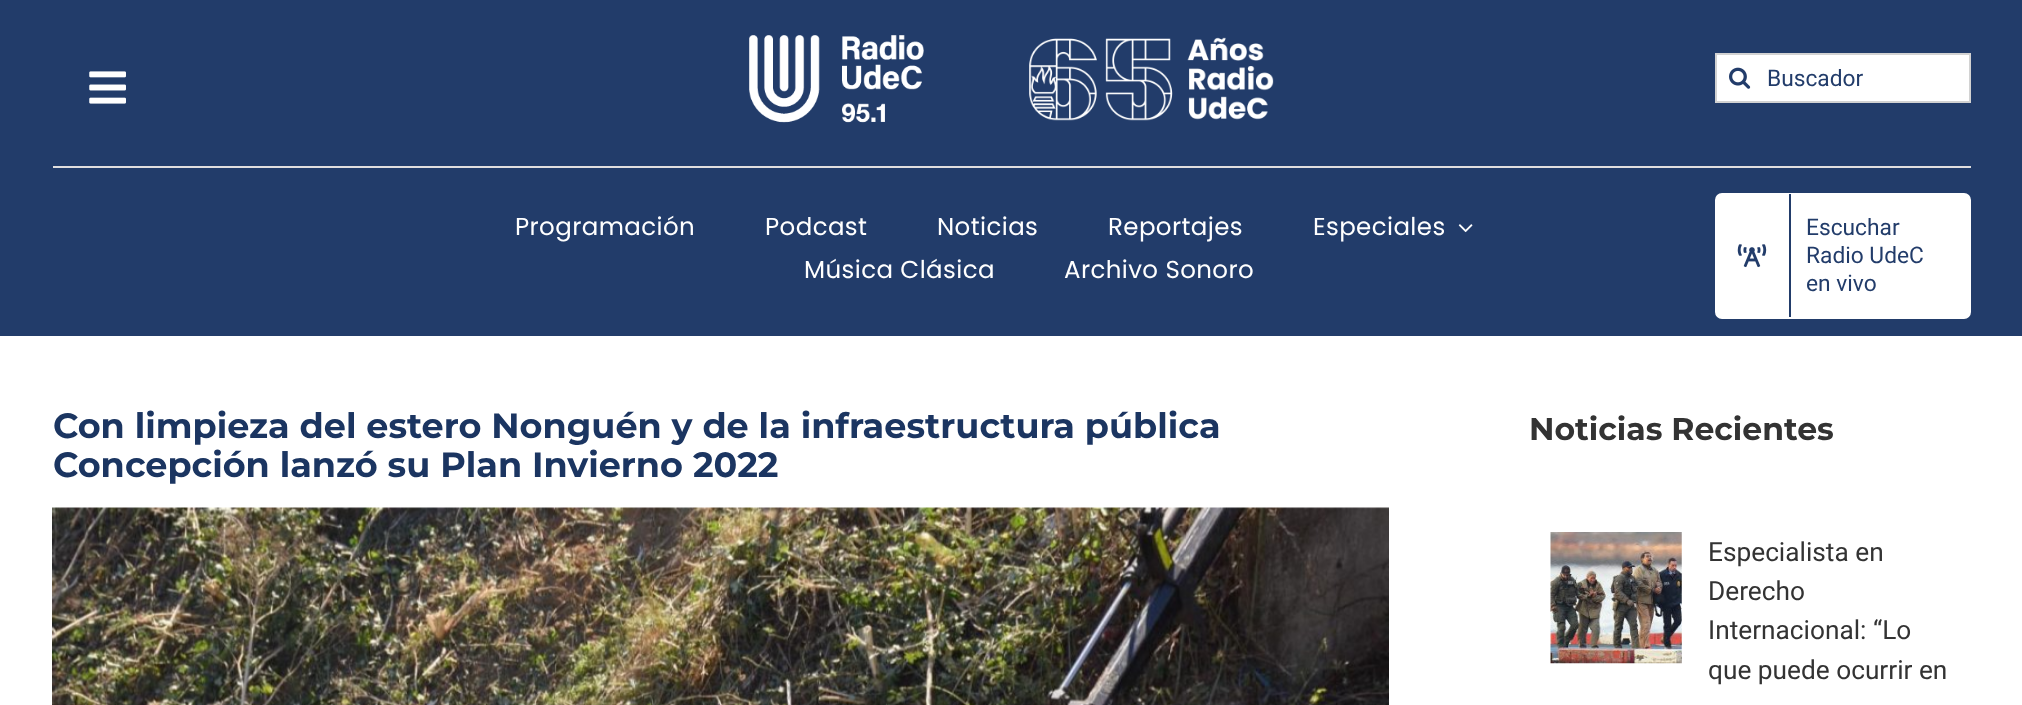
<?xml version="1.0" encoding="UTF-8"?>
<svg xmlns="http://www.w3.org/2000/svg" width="2022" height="705">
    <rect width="100%" height="100%" fill="#FFFFFF"/>
    <rect x="0" y="0" width="2022" height="336" fill="#223C6A"/>
    <rect x="53" y="166" width="1918" height="2" fill="#E0DEDE"/>
    <image x="89" y="71" width="37" height="33" href="img_01.png"/>
    <image x="749" y="35" width="175" height="88" href="img_02.png"/>
    <image x="1029" y="37" width="245" height="84" href="img_03.png"/>
    <rect x="1716" y="54" width="254" height="48" fill="#FFFFFF" stroke="#D2D2D2" stroke-width="2"/>
    <image x="1729" y="67" width="22" height="22" href="img_04.png"/>
    <text x="1767" y="86" font-family="Roboto" font-size="22.75" fill="#223C6A">Buscador</text>
    <text x="515" y="235" font-family="Poppins" font-size="24.5" letter-spacing="0.4" fill="#FFFFFF">Programación</text>
    <text x="765" y="235" font-family="Poppins" font-size="24.5" letter-spacing="0.4" fill="#FFFFFF">Podcast</text>
    <text x="937" y="235" font-family="Poppins" font-size="24.5" letter-spacing="0.4" fill="#FFFFFF">Noticias</text>
    <text x="1108" y="235" font-family="Poppins" font-size="24.5" letter-spacing="0.4" fill="#FFFFFF">Reportajes</text>
    <text x="1313" y="235" font-family="Poppins" font-size="24.5" letter-spacing="0.4" fill="#FFFFFF">Especiales</text>
    <image x="1458" y="224" width="15" height="9" href="img_05.png"/>
    <text x="804" y="278" font-family="Poppins" font-size="24.5" letter-spacing="0.4" fill="#FFFFFF">Música Clásica</text>
    <text x="1064" y="278" font-family="Poppins" font-size="24.5" letter-spacing="0.4" fill="#FFFFFF">Archivo Sonoro</text>
    <rect x="1716" y="194" width="254" height="124" rx="6" fill="#FFFFFF" stroke="#FFFFFF" stroke-width="2"/>
    <rect x="1789" y="194" width="2" height="123" fill="#223C6A"/>
    <image x="1737" y="244" width="30" height="24" href="img_06.png"/>
    <text font-family="Roboto" font-size="22.75" fill="#223C6A">
        <tspan x="1806" y="235">Escuchar</tspan>
        <tspan x="1806" y="263">Radio UdeC</tspan>
        <tspan x="1806" y="291">en vivo</tspan>
    </text>
    <text font-family="Montserrat" font-size="35" font-weight="700" fill="#1B3561">
        <tspan x="53" y="438">Con limpieza del estero Nonguén y de la infraestructura pública</tspan>
        <tspan x="53" y="477">Concepción lanzó su Plan Invierno 2022</tspan>
    </text>
    <image x="52" y="507" width="1337" height="198" href="img_07.png"/>
    <text x="1529" y="440" font-family="Montserrat" font-size="31.5" font-weight="700" fill="#333333">Noticias Recientes</text>
    <image x="1550" y="532" width="132" height="132" href="img_08.png"/>
    <text font-family="Roboto" font-size="26.25" fill="#333333">
        <tspan x="1708" y="561">Especialista en</tspan>
        <tspan x="1708" y="600">Derecho</tspan>
        <tspan x="1708" y="639">Internacional: “Lo</tspan>
        <tspan x="1708" y="679">que puede ocurrir en</tspan>
    </text>
</svg>
